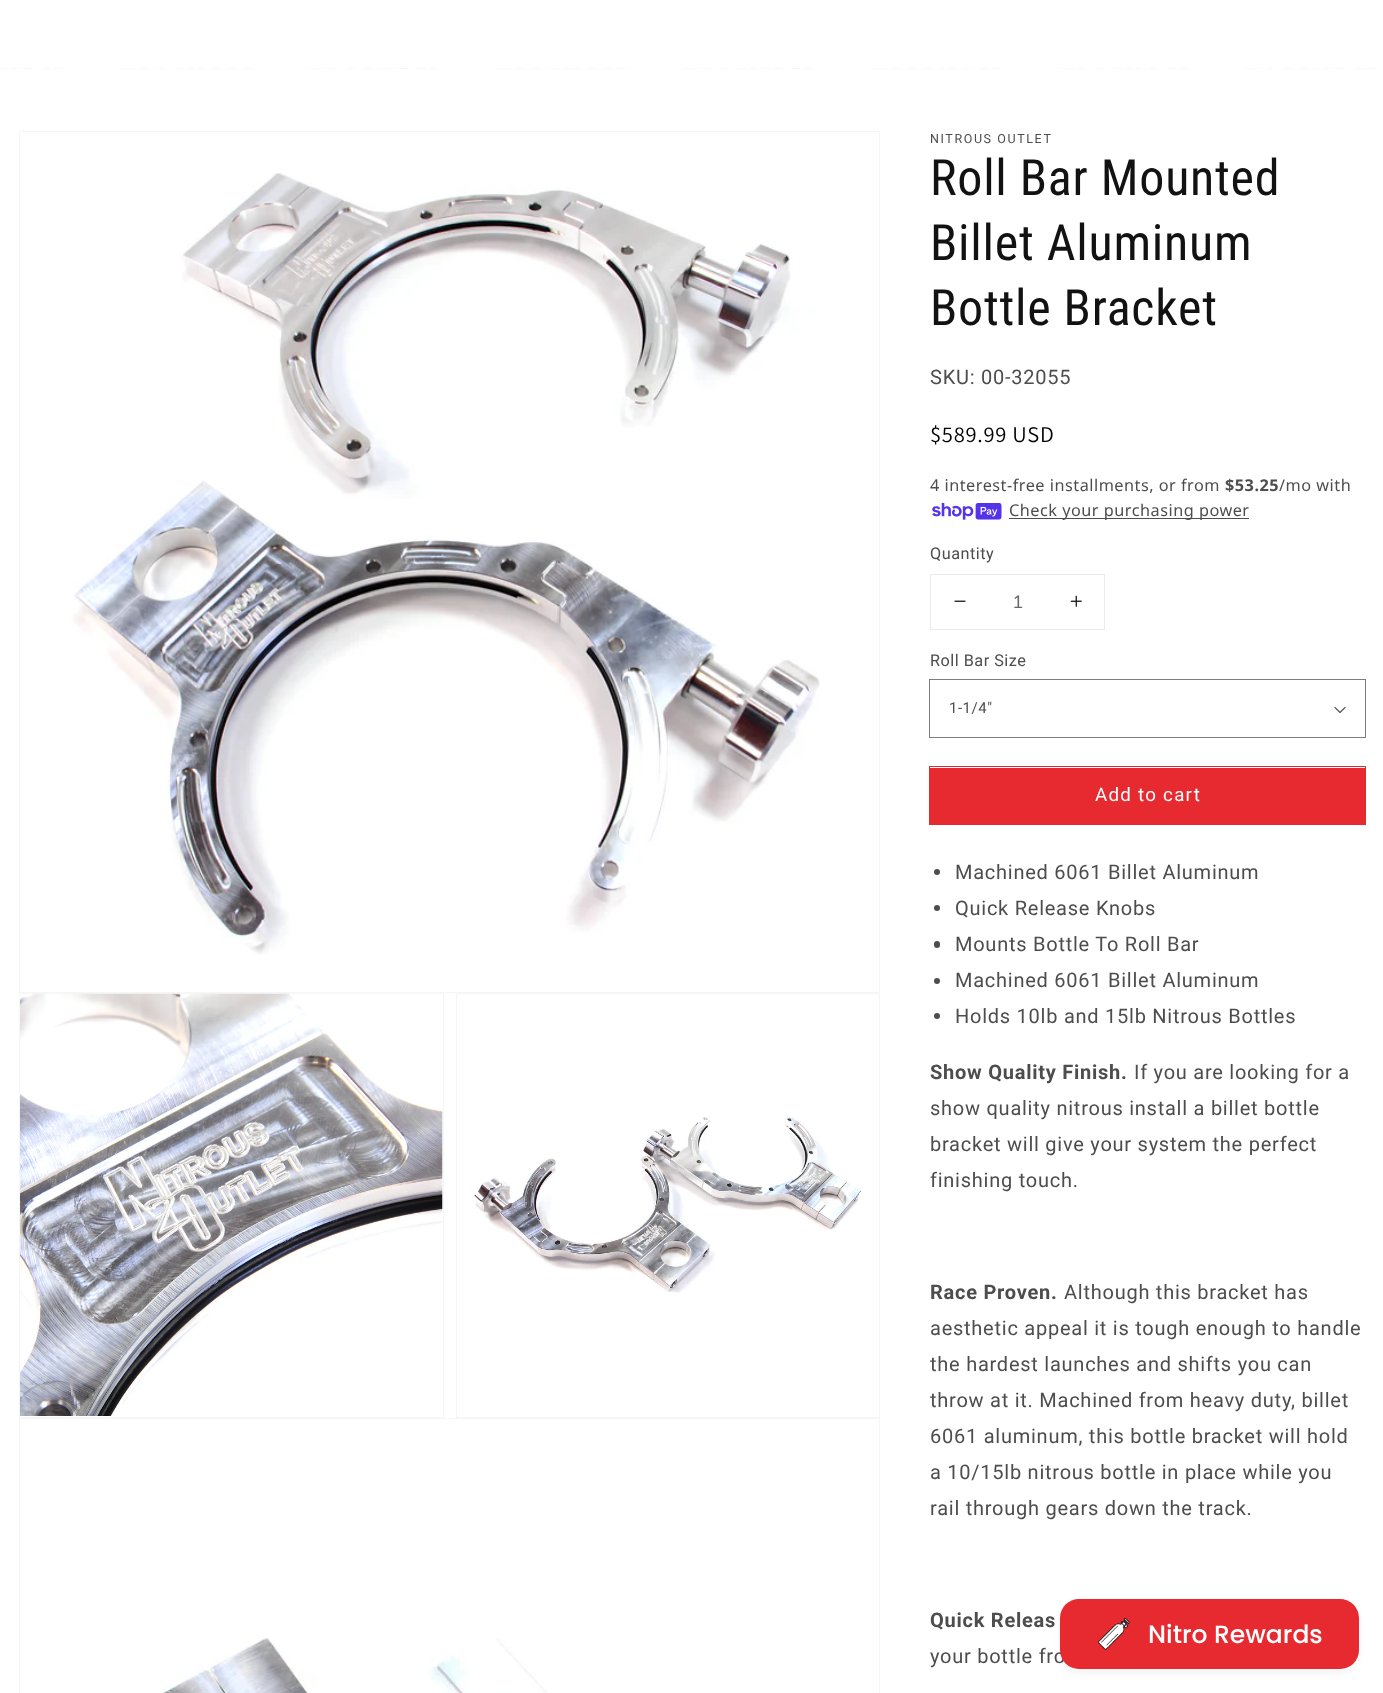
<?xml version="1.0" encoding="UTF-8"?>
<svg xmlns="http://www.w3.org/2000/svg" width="1383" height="1693">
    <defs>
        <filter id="blur1" x="-50%" y="-200%" width="200%" height="500%"><feGaussianBlur stdDeviation="5"/></filter>
    </defs>
    <rect width="100%" height="100%" fill="#FFFFFF"/>
    <image x="0" y="68" width="1383" height="1" href="img_01.png"/>
    <rect x="19.5" y="131.5" width="860" height="861" fill="none" stroke="#F6F6F6"/>
    <image x="72" y="173" width="748" height="782" href="img_02.png"/>
    <rect x="19.5" y="993.5" width="424" height="424" fill="none" stroke="#F6F6F6"/>
    <image x="20" y="993" width="423" height="423" href="img_03.png"/>
    <rect x="456.5" y="993.5" width="423" height="424" fill="none" stroke="#F6F6F6"/>
    <image x="474" y="1116" width="387" height="177" href="img_04.png"/>
    <rect x="19.5" y="1418.5" width="860" height="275" fill="none" stroke="#F6F6F6"/>
    <image x="163" y="1638" width="384" height="55" href="img_05.png"/>
    <text x="930" y="143" font-family="Roboto" font-size="12.5" letter-spacing="1.6" fill="#4D4D4D">NITROUS OUTLET</text>
    <text font-family="Roboto Condensed" font-size="50" letter-spacing="0.75" fill="#121212">
        <tspan x="930" y="195">Roll Bar Mounted</tspan>
        <tspan x="930" y="260">Billet Aluminum</tspan>
        <tspan x="930" y="325">Bottle Bracket</tspan>
    </text>
    <text x="930" y="384" font-family="Roboto" font-size="20" letter-spacing="0.75" fill="#4D4D4D">SKU: 00-32055</text>
    <text x="930" y="442" font-family="Assistant" font-size="22.5" letter-spacing="0.75" fill="#000000">$589.99 USD</text>
    <text x="930" y="491" font-family="Noto Sans" font-size="16.25" letter-spacing="0.5" fill="#4D4D4D">4 interest-free installments, or from</text>
    <text x="1225" y="491" font-family="Noto Sans" font-size="16.25" font-weight="700" letter-spacing="0.5" fill="#4D4D4D">$53.25</text>
    <text x="1279" y="491" font-family="Noto Sans" font-size="16.25" letter-spacing="0.5" fill="#4D4D4D">/mo with</text>
    <image x="932" y="503" width="70" height="17" href="img_06.png"/>
    <rect x="1009" y="518" width="240" height="1" fill="#4D4D4D"/>
    <text x="1009" y="516" font-family="Noto Sans" font-size="16.25" letter-spacing="0.5" fill="#4D4D4D">Check your purchasing power</text>
    <text x="930" y="559" font-family="Roboto" font-size="16.25" letter-spacing="0.5" fill="#4D4D4D">Quantity</text>
    <rect x="930.5" y="574.5" width="174" height="55" fill="none" stroke="#ECECEC"/>
    <image x="954" y="600" width="12" height="2" href="img_07.png"/>
    <text x="1013" y="608" font-family="Liberation Sans" font-size="18" fill="#686868">1</text>
    <image x="1070" y="595" width="12" height="12" href="img_08.png"/>
    <text x="930" y="666" font-family="Roboto" font-size="16.25" letter-spacing="0.5" fill="#4D4D4D">Roll Bar Size</text>
    <rect x="929.5" y="679.5" width="436" height="58" fill="none" stroke="#7D7D7D"/>
    <text x="949" y="713" font-family="Roboto" font-size="15" letter-spacing="0.5" fill="#4D4D4D">1-1/4"</text>
    <image x="1334" y="707" width="12" height="6" href="img_09.png"/>
    <rect x="929.5" y="766.5" width="436" height="58" fill="none" stroke="#E72930"/>
    <rect x="930" y="768" width="435" height="56" fill="#E72930"/>
    <text x="1095" y="801" font-family="Roboto" font-size="18.75" letter-spacing="1.25" fill="#FFFFFF">Add to cart</text>
    <circle cx="937" cy="872" r="3" fill="#4D4D4D"/>
    <text x="955" y="879" font-family="Roboto" font-size="20" letter-spacing="0.75" fill="#4D4D4D">Machined 6061 Billet Aluminum</text>
    <circle cx="937" cy="908" r="3" fill="#4D4D4D"/>
    <text x="955" y="915" font-family="Roboto" font-size="20" letter-spacing="0.75" fill="#4D4D4D">Quick Release Knobs</text>
    <rect x="934" y="941" width="6" height="7" rx="3" fill="#4D4D4D"/>
    <text x="955" y="951" font-family="Roboto" font-size="20" letter-spacing="0.75" fill="#4D4D4D">Mounts Bottle To Roll Bar</text>
    <circle cx="937" cy="981" r="3" fill="#4D4D4D"/>
    <text x="955" y="987" font-family="Roboto" font-size="20" letter-spacing="0.75" fill="#4D4D4D">Machined 6061 Billet Aluminum</text>
    <circle cx="937" cy="1016" r="3" fill="#4D4D4D"/>
    <text x="955" y="1023" font-family="Roboto" font-size="20" letter-spacing="0.75" fill="#4D4D4D">Holds 10lb and 15lb Nitrous Bottles</text>
    <text x="930" y="1079" font-family="Roboto" font-size="20" font-weight="700" letter-spacing="0.75" fill="#4D4D4D">Show Quality Finish.</text>
    <text x="1134" y="1079" font-family="Roboto" font-size="20" letter-spacing="0.75" fill="#4D4D4D">If you are looking for a</text>
    <text font-family="Roboto" font-size="20" letter-spacing="0.75" fill="#4D4D4D">
        <tspan x="930" y="1115">show quality nitrous install a billet bottle</tspan>
        <tspan x="930" y="1151">bracket will give your system the perfect</tspan>
        <tspan x="930" y="1187">finishing touch.</tspan>
    </text>
    <text x="930" y="1299" font-family="Roboto" font-size="20" font-weight="700" letter-spacing="0.75" fill="#4D4D4D">Race Proven.</text>
    <text x="1064" y="1299" font-family="Roboto" font-size="20" letter-spacing="0.75" fill="#4D4D4D">Although this bracket has</text>
    <text font-family="Roboto" font-size="20" letter-spacing="0.75" fill="#4D4D4D">
        <tspan x="930" y="1335">aesthetic appeal it is tough enough to handle</tspan>
        <tspan x="930" y="1371">the hardest launches and shifts you can</tspan>
        <tspan x="930" y="1407">throw at it. Machined from heavy duty, billet</tspan>
        <tspan x="930" y="1443">6061 aluminum, this bottle bracket will hold</tspan>
        <tspan x="930" y="1479">a 10/15lb nitrous bottle in place while you</tspan>
        <tspan x="930" y="1515">rail through gears down the track.</tspan>
    </text>
    <text x="930" y="1627" font-family="Roboto" font-size="20" font-weight="700" letter-spacing="0.75" fill="#4D4D4D">Quick Releas</text>
    <text x="930" y="1663" font-family="Roboto" font-size="20" letter-spacing="0.75" fill="#4D4D4D">your bottle fro</text>
    <rect x="1063" y="1606" width="293" height="65" rx="16" fill="#444444" fill-opacity="0.08" filter="url(#blur1)"/>
    <rect x="1060" y="1599" width="299" height="70" rx="19" fill="#E72930"/>
    <image x="1098" y="1617" width="32" height="33" href="img_10.png"/>
    <text x="1148" y="1643" font-family="Poppins" font-size="25" font-weight="500" fill="#FFFFFF">Nitro Rewards</text>
</svg>
